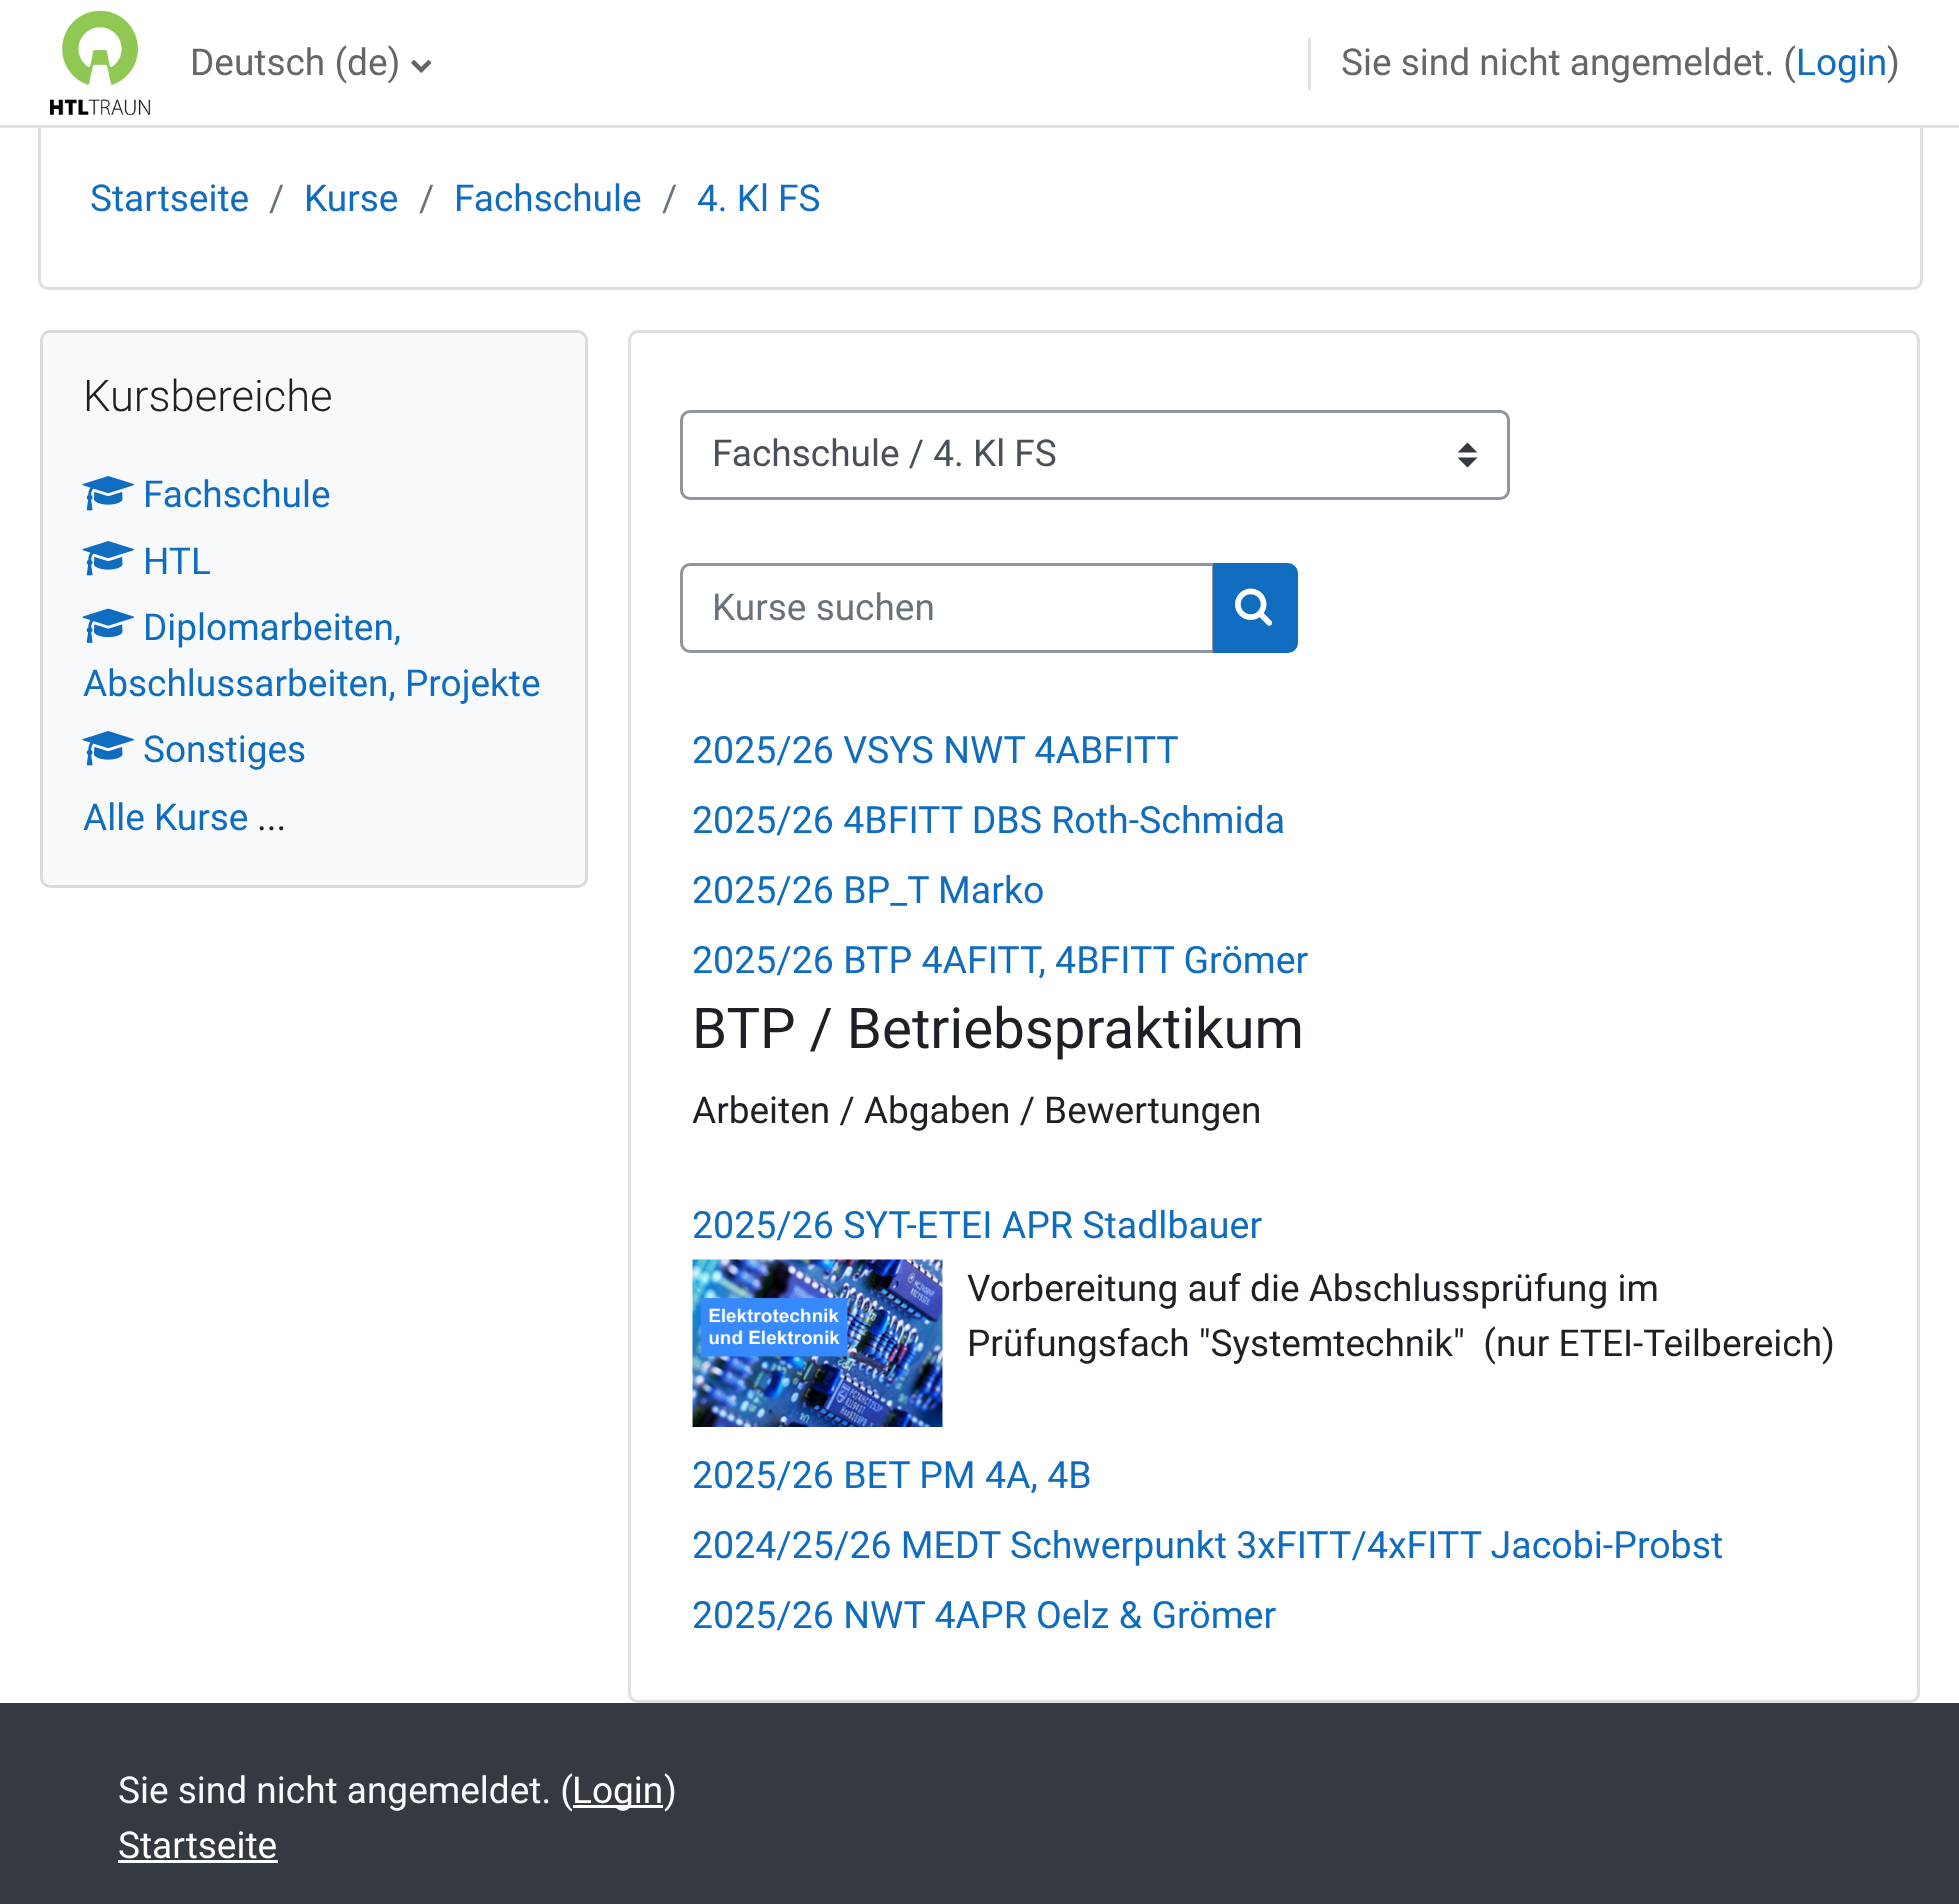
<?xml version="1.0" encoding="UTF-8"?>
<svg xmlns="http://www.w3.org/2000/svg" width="1959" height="1904">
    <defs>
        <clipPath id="clip1"><rect x="1458" y="443" width="20" height="25"/></clipPath>
    </defs>
    <rect width="100%" height="100%" fill="#FFFFFF"/>
    <rect x="39.5" y="-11.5" width="1882" height="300" rx="8.5" fill="none" stroke="#DFDFDF" stroke-width="3"/>
    <rect x="38" y="0" width="1885" height="125" fill="#FFFFFF"/>
    <rect x="0" y="125" width="1959" height="3" fill="#DEE2E6"/>
    <image x="50" y="10" width="101" height="105" href="img_01.png"/>
    <text x="190" y="75" font-family="Roboto" font-size="37" fill="#666666">Deutsch (de)</text>
    <image x="411" y="60" width="21" height="13" href="img_02.png"/>
    <rect x="1308" y="38" width="3" height="52" fill="#DEE2E6"/>
    <text x="1341" y="75" font-family="Roboto" font-size="37" fill="#666666">Sie sind nicht angemeldet. (</text>
    <text x="1796" y="75" font-family="Roboto" font-size="37" fill="#0F6CBF">Login</text>
    <text x="1887" y="75" font-family="Roboto" font-size="37" fill="#666666">)</text>
    <text x="90" y="211" font-family="Roboto" font-size="37" fill="#0F6CBF">Startseite</text>
    <text x="269" y="211" font-family="Roboto" font-size="37" fill="#6A737B">/</text>
    <text x="304" y="211" font-family="Roboto" font-size="37" fill="#0F6CBF">Kurse</text>
    <text x="419" y="211" font-family="Roboto" font-size="37" fill="#6A737B">/</text>
    <text x="454" y="211" font-family="Roboto" font-size="37" fill="#0F6CBF">Fachschule</text>
    <text x="662" y="211" font-family="Roboto" font-size="37" fill="#6A737B">/</text>
    <text x="697" y="211" font-family="Roboto" font-size="37" fill="#0F6CBF">4. Kl FS</text>
    <rect x="40" y="330" width="548" height="558" rx="10" fill="#F8F9FA"/>
    <rect x="41.5" y="331.5" width="545" height="555" rx="8.5" fill="none" stroke="#000000" stroke-opacity="0.12" stroke-width="3"/>
    <text x="83" y="411" font-family="Roboto" font-size="43.5" font-weight="300" fill="#1D2125">Kursbereiche</text>
    <image x="82" y="476" width="52" height="35" href="img_03.png"/>
    <text x="143" y="507" font-family="Roboto" font-size="37" fill="#0F6CBF">Fachschule</text>
    <image x="82" y="541" width="52" height="35" href="img_03.png"/>
    <text x="143" y="574" font-family="Roboto" font-size="37" fill="#0F6CBF">HTL</text>
    <image x="82" y="608" width="52" height="35" href="img_04.png"/>
    <text x="143" y="640" font-family="Roboto" font-size="37" fill="#0F6CBF">Diplomarbeiten,</text>
    <text x="83" y="696" font-family="Roboto" font-size="37" fill="#0F6CBF">Abschlussarbeiten, Projekte</text>
    <image x="82" y="731" width="52" height="35" href="img_03.png"/>
    <text x="143" y="762" font-family="Roboto" font-size="37" fill="#0F6CBF">Sonstiges</text>
    <text x="83" y="830" font-family="Roboto" font-size="37" fill="#0F6CBF">Alle Kurse</text>
    <text x="257" y="830" font-family="Roboto" font-size="37" fill="#1D2125">...</text>
    <rect x="629.5" y="331.5" width="1289" height="1370" rx="8.5" fill="none" stroke="#DFDFDF" stroke-width="3"/>
    <g clip-path="url(#clip1)">
        <path d="M 1467.5 442.5 L 1457.5 452.5 H 1477.5 Z M 1467.5 467.5 L 1457.5 457.5 H 1477.5 Z" fill="#343A40"/>
    </g>
    <rect x="681.5" y="411.5" width="827" height="87" rx="8.5" fill="none" stroke="#8F959E" stroke-width="3"/>
    <text x="712" y="466" font-family="Roboto" font-size="37" fill="#495057">Fachschule / 4. Kl FS</text>
    <path d="M 690 564.5 H 1213.5 V 651.5 H 690 C 685.5 651.5 681.5 647.5 681.5 643 V 573 C 681.5 568.5 685.5 564.5 690 564.5 Z" fill="none" stroke="#8F959E" stroke-width="3"/>
    <text x="712" y="620" font-family="Roboto" font-size="37" fill="#6A737B">Kurse suchen</text>
    <path d="M 1214.5 564.5 H 1288 C 1292.5 564.5 1296.5 568.5 1296.5 573 V 643 C 1296.5 647.5 1292.5 651.5 1288 651.5 H 1214.5 Z" fill="#0F6CBF" stroke="#0F6CBF" stroke-width="3"/>
    <image x="1235" y="588" width="38" height="38" href="img_05.png"/>
    <text font-family="Roboto" font-size="37.5" fill="#0F6CBF">
        <tspan x="692" y="763">2025/26 VSYS NWT 4ABFITT</tspan>
        <tspan x="692" y="833">2025/26 4BFITT DBS Roth-Schmida</tspan>
        <tspan x="692" y="903">2025/26 BP_T Marko</tspan>
        <tspan x="692" y="973">2025/26 BTP 4AFITT, 4BFITT Grömer</tspan>
    </text>
    <text x="692" y="1048" font-family="Roboto" font-size="56.4" fill="#1D2125">BTP / Betriebspraktikum</text>
    <text x="692" y="1123" font-family="Roboto" font-size="37" fill="#1D2125">Arbeiten / Abgaben / Bewertungen</text>
    <text x="692" y="1238" font-family="Roboto" font-size="37.5" fill="#0F6CBF">2025/26 SYT-ETEI APR Stadlbauer</text>
    <image x="692" y="1259" width="251" height="168" href="img_06.png"/>
    <text font-family="Roboto" font-size="37" fill="#1D2125" xml:space="preserve"><tspan x="967" y="1301">Vorbereitung auf die Abschlussprüfung im</tspan><tspan x="967" y="1356">Prüfungsfach "Systemtechnik"  (nur ETEI-Teilbereich)</tspan></text>
    <text font-family="Roboto" font-size="37.5" fill="#0F6CBF">
        <tspan x="692" y="1488">2025/26 BET PM 4A, 4B</tspan>
        <tspan x="692" y="1558">2024/25/26 MEDT Schwerpunkt 3xFITT/4xFITT Jacobi-Probst</tspan>
        <tspan x="692" y="1628">2025/26 NWT 4APR Oelz &amp; Grömer</tspan>
    </text>
    <rect x="0" y="1703" width="1959" height="201" fill="#343A40"/>
    <text x="118" y="1803" font-family="Roboto" font-size="37" fill="#F8F9FA">Sie sind nicht angemeldet. (</text>
    <rect x="573" y="1805" width="90" height="3" fill="#FFFFFF"/>
    <text x="572" y="1803" font-family="Roboto" font-size="37" fill="#FFFFFF">Login</text>
    <text x="664" y="1803" font-family="Roboto" font-size="37" fill="#F8F9FA">)</text>
    <text x="118" y="1858" font-family="Roboto" font-size="37" fill="#FFFFFF">Startseite</text>
    <rect x="118" y="1860" width="160" height="3" fill="#FFFFFF"/>
</svg>
